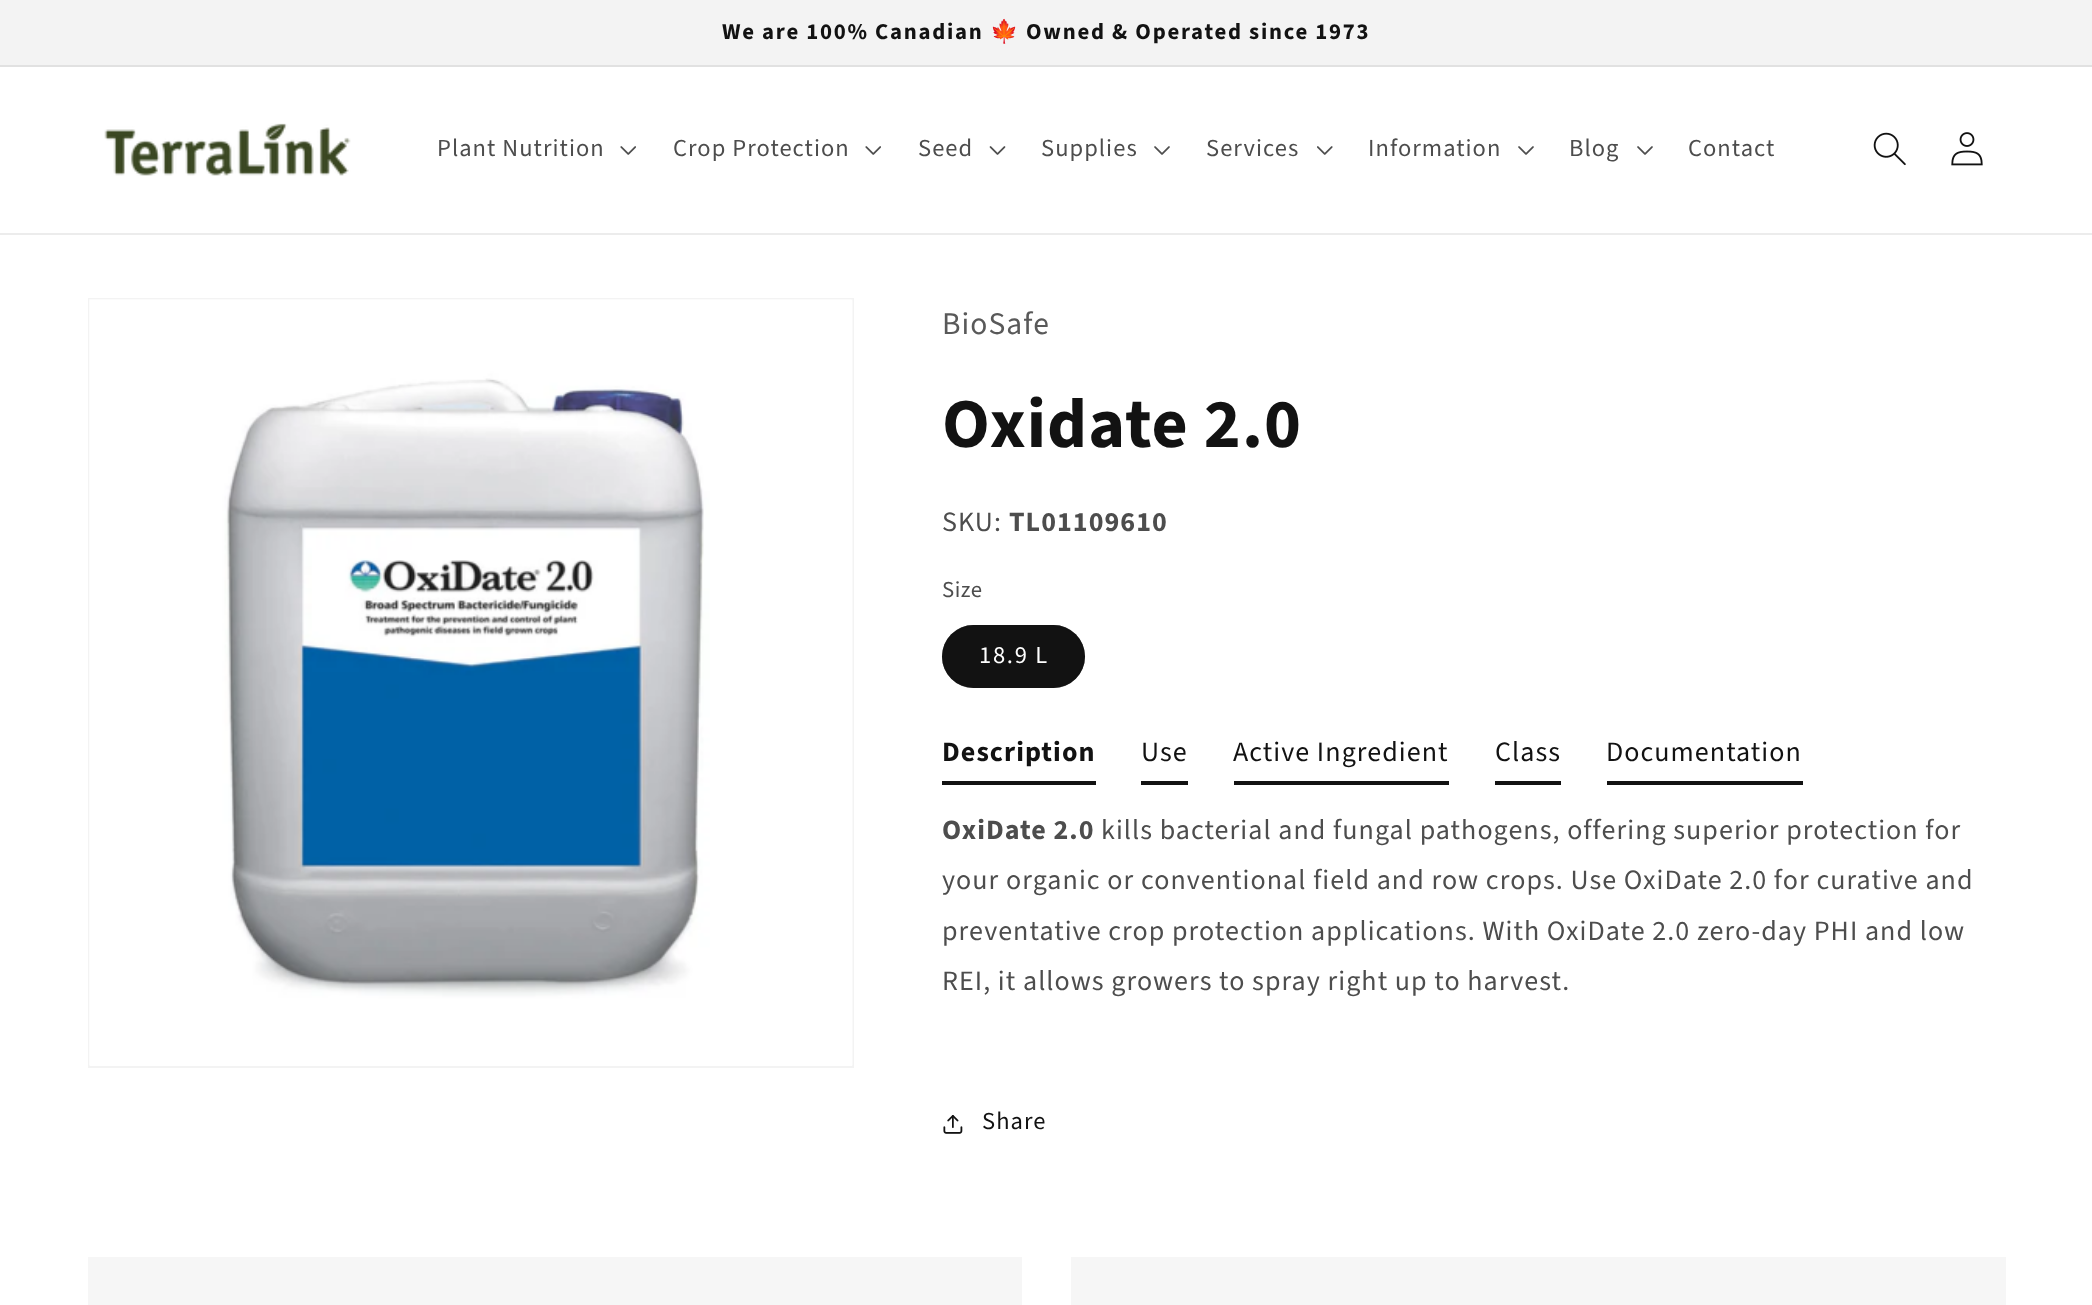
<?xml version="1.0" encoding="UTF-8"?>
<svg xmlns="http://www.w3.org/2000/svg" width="2092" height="1305">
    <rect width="100%" height="100%" fill="#FFFFFF"/>
    <rect x="0" y="0" width="2092" height="65" fill="#F3F3F3"/>
    <rect x="0" y="65" width="2092" height="2" fill="#E1E1E1"/>
    <text x="722" y="39" font-family="Source Sans Pro" font-size="22.75" font-weight="700" letter-spacing="1.75" fill="#121212">We are 100% Canadian</text>
    <text x="990" y="39" font-family="Noto Color Emoji" font-size="22.75" font-weight="700" letter-spacing="1.75" fill="#121212">🍁</text>
    <text x="1026" y="39" font-family="Source Sans Pro" font-size="22.75" font-weight="700" letter-spacing="1.75" fill="#121212">Owned &amp; Operated since 1973</text>
    <rect x="0" y="233" width="2092" height="2" fill="#ECECEC"/>
    <image x="104" y="123" width="247" height="53" href="img_01.png"/>
    <text x="437" y="156" font-family="Source Sans Pro" font-size="24.5" letter-spacing="1.05" fill="#4D4D4D">Plant Nutrition</text>
    <image x="620" y="146" width="16" height="9" href="img_02.png"/>
    <text x="673" y="156" font-family="Source Sans Pro" font-size="24.5" letter-spacing="1.05" fill="#4D4D4D">Crop Protection</text>
    <image x="865" y="146" width="16" height="9" href="img_02.png"/>
    <text x="918" y="156" font-family="Source Sans Pro" font-size="24.5" letter-spacing="1.05" fill="#4D4D4D">Seed</text>
    <image x="989" y="146" width="17" height="9" href="img_03.png"/>
    <text x="1041" y="156" font-family="Source Sans Pro" font-size="24.5" letter-spacing="1.05" fill="#4D4D4D">Supplies</text>
    <image x="1154" y="146" width="16" height="9" href="img_04.png"/>
    <text x="1206" y="156" font-family="Source Sans Pro" font-size="24.5" letter-spacing="1.05" fill="#4D4D4D">Services</text>
    <image x="1317" y="146" width="16" height="9" href="img_05.png"/>
    <text x="1368" y="156" font-family="Source Sans Pro" font-size="24.5" letter-spacing="1.05" fill="#4D4D4D">Information</text>
    <image x="1518" y="146" width="16" height="9" href="img_04.png"/>
    <text x="1569" y="156" font-family="Source Sans Pro" font-size="24.5" letter-spacing="1.05" fill="#4D4D4D">Blog</text>
    <image x="1637" y="146" width="16" height="9" href="img_04.png"/>
    <text x="1688" y="156" font-family="Source Sans Pro" font-size="24.5" letter-spacing="1.05" fill="#4D4D4D">Contact</text>
    <image x="1873" y="132" width="33" height="34" href="img_06.png"/>
    <image x="1951" y="132" width="32" height="34" href="img_07.png"/>
    <rect x="89" y="299" width="764" height="768" fill="none" stroke="#F3F3F3" stroke-width="2"/>
    <image x="89" y="299" width="764" height="767" href="img_08.png"/>
    <text x="942" y="334" font-family="Source Sans Pro" font-size="31.5" letter-spacing="1.05" fill="#595959">BioSafe</text>
    <text x="942" y="447" font-family="Source Sans Pro" font-size="70" font-weight="700" letter-spacing="1.05" fill="#121212">Oxidate 2.0</text>
    <text x="942" y="531" font-family="Source Sans Pro" font-size="28" letter-spacing="1.05" fill="#4D4D4D">SKU:</text>
    <text x="1009" y="531" font-family="Source Sans Pro" font-size="28" font-weight="700" letter-spacing="1.05" fill="#4D4D4D">TL01109610</text>
    <text x="942" y="597" font-family="Source Sans Pro" font-size="22.75" letter-spacing="0.5" fill="#4D4D4D">Size</text>
    <rect x="942" y="625" width="143" height="63" rx="31.5" fill="#121212"/>
    <rect x="943" y="626" width="141" height="61" rx="30.5" fill="none" stroke="#121212" stroke-opacity="0.55" stroke-width="2"/>
    <text x="979" y="663" font-family="Source Sans Pro" font-size="24.5" letter-spacing="1.75" fill="#FFFFFF">18.9 L</text>
    <rect x="942" y="781" width="154" height="4" fill="#121212"/>
    <text x="942" y="761" font-family="Source Sans Pro" font-size="28" font-weight="700" letter-spacing="1.05" fill="#121212">Description</text>
    <rect x="1141" y="781" width="47" height="4" fill="#121212"/>
    <text x="1141" y="761" font-family="Source Sans Pro" font-size="28" letter-spacing="1.05" fill="#121212">Use</text>
    <rect x="1234" y="781" width="215" height="4" fill="#121212"/>
    <text x="1233" y="761" font-family="Source Sans Pro" font-size="28" letter-spacing="1.05" fill="#121212">Active Ingredient</text>
    <rect x="1495" y="781" width="66" height="4" fill="#121212"/>
    <text x="1495" y="761" font-family="Source Sans Pro" font-size="28" letter-spacing="1.05" fill="#121212">Class</text>
    <rect x="1607" y="781" width="196" height="4" fill="#121212"/>
    <text x="1606" y="761" font-family="Source Sans Pro" font-size="28" letter-spacing="1.05" fill="#121212">Documentation</text>
    <text x="942" y="839" font-family="Source Sans Pro" font-size="28" font-weight="700" letter-spacing="1.05" fill="#4D4D4D">OxiDate 2.0</text>
    <text x="1101" y="839" font-family="Source Sans Pro" font-size="28" letter-spacing="1.05" fill="#4D4D4D">kills bacterial and fungal pathogens, offering superior protection for</text>
    <text font-family="Source Sans Pro" font-size="28" letter-spacing="1.05" fill="#4D4D4D">
        <tspan x="942" y="889">your organic or conventional field and row crops. Use OxiDate 2.0 for curative and</tspan>
        <tspan x="942" y="940">preventative crop protection applications. With OxiDate 2.0 zero-day PHI and low</tspan>
        <tspan x="942" y="990">REI, it allows growers to spray right up to harvest.</tspan>
    </text>
    <image x="943" y="1115" width="20" height="19" href="img_09.png"/>
    <text x="982" y="1129" font-family="Source Sans Pro" font-size="24.5" letter-spacing="1.05" fill="#121212">Share</text>
    <rect x="88" y="1257" width="934" height="48" fill="#F6F6F6"/>
    <rect x="1071" y="1257" width="935" height="48" fill="#F6F6F6"/>
</svg>
